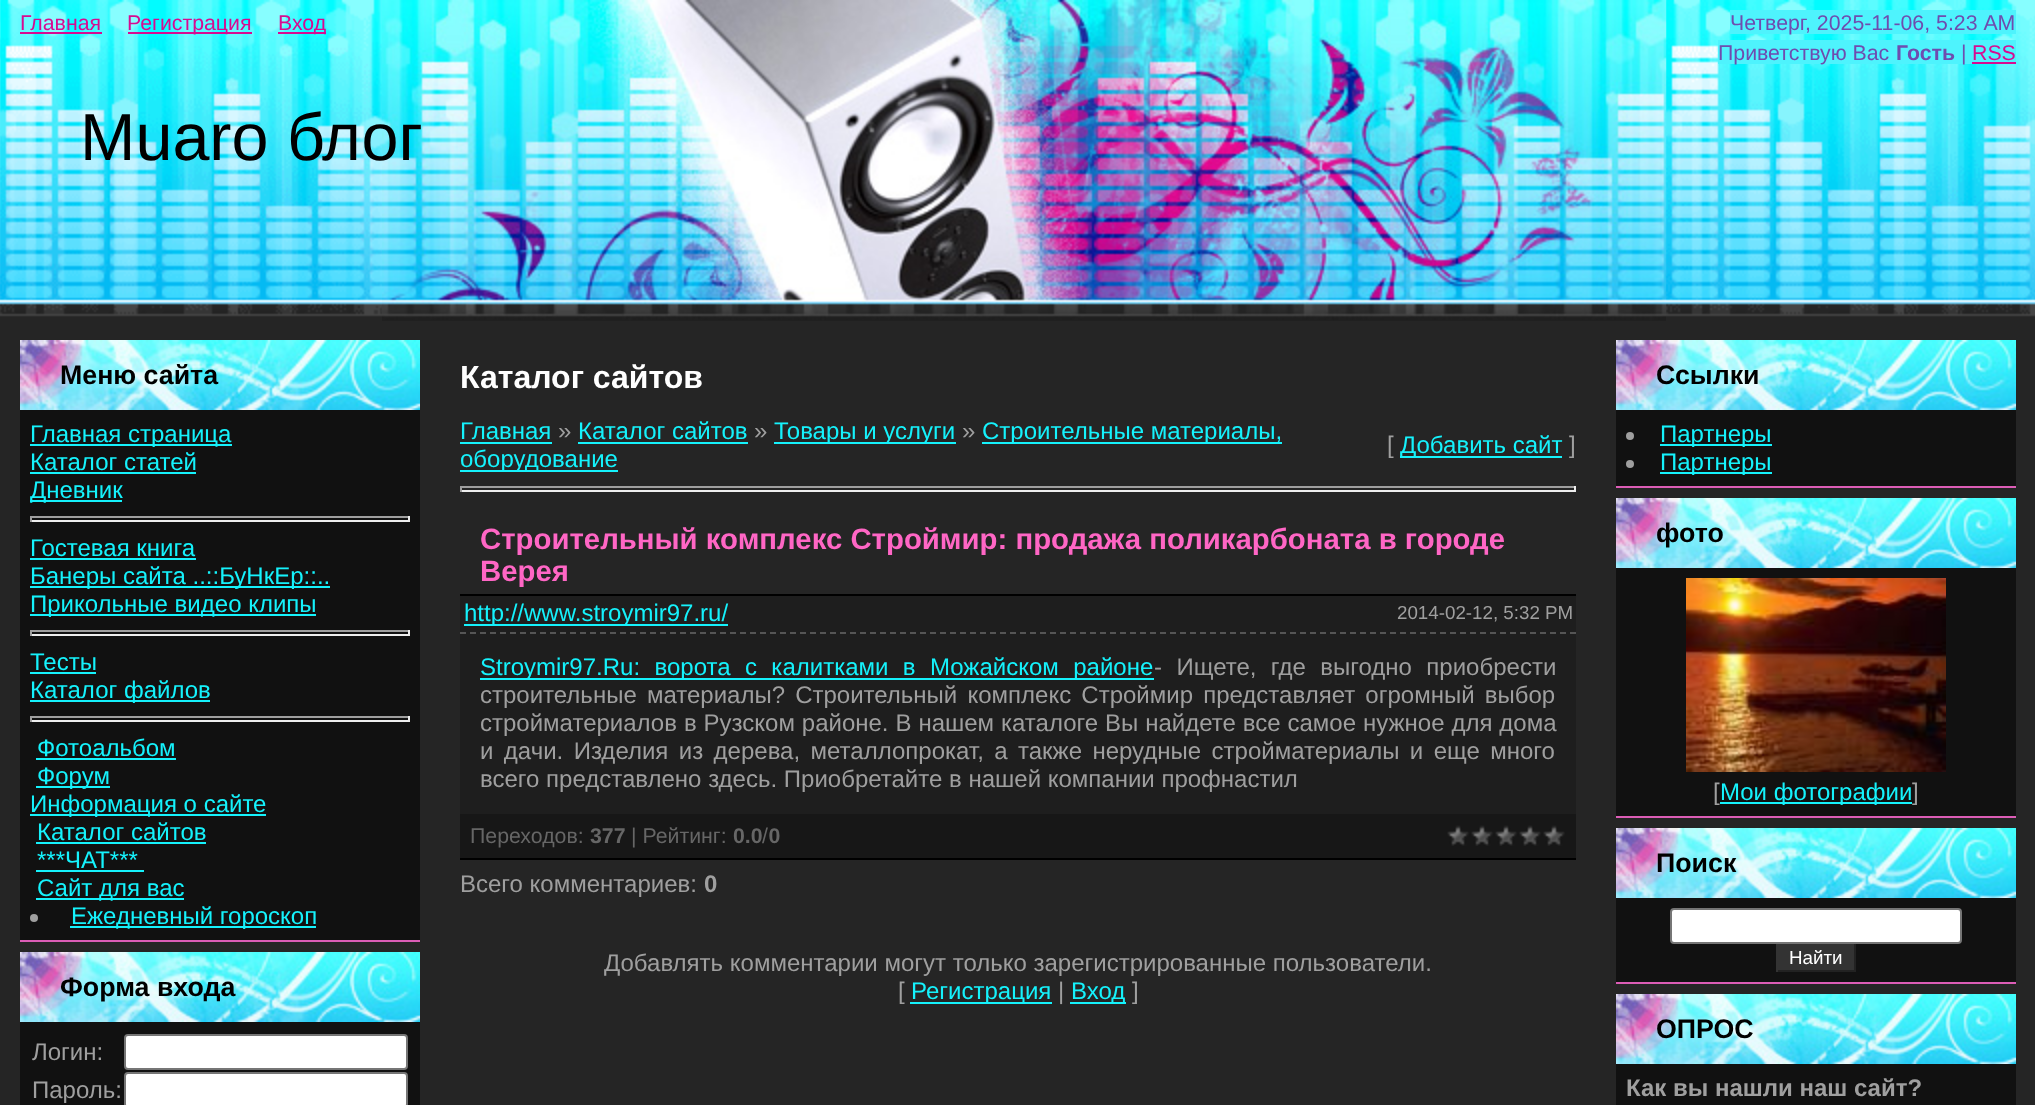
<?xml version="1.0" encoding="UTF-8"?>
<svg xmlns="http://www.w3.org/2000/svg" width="2035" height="1105">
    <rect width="100%" height="100%" fill="#252525"/>
    <image x="0" y="0" width="2035" height="317" href="img_01.png"/>
    <image x="382" y="0" width="1284" height="321" href="img_02.png"/>
    <text x="20" y="30" font-family="Liberation Sans" font-size="21.3" fill="#D80B91">Главная</text>
    <rect x="20" y="32" width="82" height="2" fill="#D80B91"/>
    <rect x="128" y="32" width="124" height="2" fill="#D80B91"/>
    <text x="127" y="30" font-family="Liberation Sans" font-size="21.3" fill="#D80B91">Регистрация</text>
    <rect x="278" y="32" width="48" height="2" fill="#D80B91"/>
    <text x="278" y="30" font-family="Liberation Sans" font-size="21.3" fill="#D80B91">Вход</text>
    <rect x="1730" y="10" width="286" height="24" fill="#4EF3FD"/>
    <text x="1730" y="30" font-family="Liberation Sans" font-size="21.3" fill="#6F4CAF">Четверг, 2025-11-06, 5:23 AM</text>
    <rect x="1718" y="40" width="298" height="24" fill="#4EF3FD"/>
    <text x="1718" y="60" font-family="Liberation Sans" font-size="21.3" fill="#6F4CAF">Приветствую Вас</text>
    <text x="1896" y="60" font-family="Liberation Sans" font-size="21.3" font-weight="700" fill="#6F4CAF">Гость</text>
    <text x="1961" y="60" font-family="Liberation Sans" font-size="21.3" fill="#6F4CAF">|</text>
    <text x="1972" y="60" font-family="Liberation Sans" font-size="21.3" fill="#D80B91">RSS</text>
    <rect x="1972" y="62" width="44" height="2" fill="#D80B91"/>
    <text x="80" y="160" font-family="Liberation Sans" font-size="66.5" fill="#000000">Muaro блог</text>
    <rect x="20" y="940" width="400" height="2" fill="#DC5DB6"/>
    <image x="20" y="340" width="400" height="70" href="img_03.png"/>
    <text x="60" y="384" font-family="Liberation Sans" font-size="26.75" font-weight="700" fill="#000000">Меню сайта</text>
    <rect x="20" y="410" width="400" height="530" fill="#111111"/>
    <rect x="30" y="444" width="202" height="2" fill="#15F2FC"/>
    <text font-family="Liberation Sans" font-size="24" fill="#15F2FC">
        <tspan x="30" y="442">Главная страница</tspan>
        <tspan x="30" y="470">Каталог статей</tspan>
    </text>
    <rect x="30" y="472" width="166" height="2" fill="#15F2FC"/>
    <rect x="30" y="500" width="92" height="2" fill="#15F2FC"/>
    <text x="30" y="498" font-family="Liberation Sans" font-size="24" fill="#15F2FC">Дневник</text>
    <rect x="30" y="516" width="380" height="2" fill="#9F9F9F"/>
    <rect x="408" y="516" width="2" height="6" fill="#EEEEEE"/>
    <rect x="30" y="520" width="380" height="2" fill="#EEEEEE"/>
    <rect x="30" y="516" width="2" height="6" fill="#9F9F9F"/>
    <text x="30" y="556" font-family="Liberation Sans" font-size="24" fill="#15F2FC">Гостевая книга</text>
    <rect x="30" y="558" width="166" height="2" fill="#15F2FC"/>
    <rect x="30" y="586" width="300" height="2" fill="#15F2FC"/>
    <text x="30" y="584" font-family="Liberation Sans" font-size="24" fill="#15F2FC">Банеры сайта ..::БуНкЕр::..</text>
    <rect x="30" y="614" width="286" height="2" fill="#15F2FC"/>
    <text x="30" y="612" font-family="Liberation Sans" font-size="24" fill="#15F2FC">Прикольные видео клипы</text>
    <rect x="30" y="630" width="380" height="2" fill="#9F9F9F"/>
    <rect x="408" y="630" width="2" height="6" fill="#EEEEEE"/>
    <rect x="30" y="634" width="380" height="2" fill="#EEEEEE"/>
    <rect x="30" y="630" width="2" height="6" fill="#9F9F9F"/>
    <text x="30" y="670" font-family="Liberation Sans" font-size="24" fill="#15F2FC">Тесты</text>
    <rect x="30" y="672" width="66" height="2" fill="#15F2FC"/>
    <rect x="30" y="700" width="180" height="2" fill="#15F2FC"/>
    <text x="30" y="698" font-family="Liberation Sans" font-size="24" fill="#15F2FC">Каталог файлов</text>
    <rect x="30" y="716" width="380" height="2" fill="#9F9F9F"/>
    <rect x="408" y="716" width="2" height="6" fill="#EEEEEE"/>
    <rect x="30" y="720" width="380" height="2" fill="#EEEEEE"/>
    <rect x="30" y="716" width="2" height="6" fill="#9F9F9F"/>
    <text x="37" y="756" font-family="Liberation Sans" font-size="24" fill="#15F2FC">Фотоальбом</text>
    <rect x="36" y="758" width="140" height="2" fill="#15F2FC"/>
    <rect x="36" y="786" width="74" height="2" fill="#15F2FC"/>
    <text x="37" y="784" font-family="Liberation Sans" font-size="24" fill="#15F2FC">Форум</text>
    <rect x="30" y="814" width="236" height="2" fill="#15F2FC"/>
    <text x="30" y="812" font-family="Liberation Sans" font-size="24" fill="#15F2FC">Информация о сайте</text>
    <text x="37" y="840" font-family="Liberation Sans" font-size="24" fill="#15F2FC">Каталог сайтов</text>
    <rect x="36" y="842" width="170" height="2" fill="#15F2FC"/>
    <text x="37" y="868" font-family="Liberation Sans" font-size="24" fill="#15F2FC">***ЧАТ***</text>
    <rect x="36" y="870" width="108" height="2" fill="#15F2FC"/>
    <rect x="36" y="898" width="148" height="2" fill="#15F2FC"/>
    <text x="37" y="896" font-family="Liberation Sans" font-size="24" fill="#15F2FC">Сайт для вас</text>
    <circle cx="34" cy="918" r="4" fill="#9F9F9F"/>
    <rect x="70" y="926" width="246" height="2" fill="#15F2FC"/>
    <text x="71" y="924" font-family="Liberation Sans" font-size="24" fill="#15F2FC">Ежедневный гороскоп</text>
    <image x="20" y="952" width="400" height="70" href="img_03.png"/>
    <text x="60" y="996" font-family="Liberation Sans" font-size="26.75" font-weight="700" fill="#000000">Форма входа</text>
    <rect x="20" y="1022" width="400" height="83" fill="#111111"/>
    <text x="32" y="1060" font-family="Liberation Sans" font-size="24" fill="#9F9F9F">Логин:</text>
    <rect x="125" y="1035" width="282" height="34" rx="3" fill="#FFFFFF" stroke="#767676" stroke-width="2"/>
    <text x="32" y="1098" font-family="Liberation Sans" font-size="24" fill="#9F9F9F">Пароль:</text>
    <rect x="125" y="1073" width="282" height="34" rx="3" fill="#FFFFFF" stroke="#767676" stroke-width="2"/>
    <text x="460" y="388" font-family="Liberation Sans" font-size="32" font-weight="700" fill="#FFFFFF">Каталог сайтов</text>
    <text x="460" y="439" font-family="Liberation Sans" font-size="24" fill="#15F2FC">Главная</text>
    <rect x="460" y="442" width="92" height="2" fill="#15F2FC"/>
    <text x="558" y="439" font-family="Liberation Sans" font-size="24" fill="#9F9F9F">»</text>
    <text x="578" y="439" font-family="Liberation Sans" font-size="24" fill="#15F2FC">Каталог сайтов</text>
    <rect x="578" y="442" width="170" height="2" fill="#15F2FC"/>
    <text x="754" y="439" font-family="Liberation Sans" font-size="24" fill="#9F9F9F">»</text>
    <rect x="774" y="442" width="182" height="2" fill="#15F2FC"/>
    <text x="774" y="439" font-family="Liberation Sans" font-size="24" fill="#15F2FC">Товары и услуги</text>
    <text x="962" y="439" font-family="Liberation Sans" font-size="24" fill="#9F9F9F">»</text>
    <rect x="982" y="442" width="300" height="2" fill="#15F2FC"/>
    <text x="982" y="439" font-family="Liberation Sans" font-size="24" fill="#15F2FC">Строительные материалы,</text>
    <rect x="460" y="470" width="158" height="2" fill="#15F2FC"/>
    <text x="460" y="467" font-family="Liberation Sans" font-size="24" fill="#15F2FC">оборудование</text>
    <text x="1387" y="453" font-family="Liberation Sans" font-size="24" fill="#9F9F9F">[</text>
    <rect x="1400" y="456" width="162" height="2" fill="#15F2FC"/>
    <text x="1400" y="453" font-family="Liberation Sans" font-size="24" fill="#15F2FC">Добавить сайт</text>
    <text x="1569" y="453" font-family="Liberation Sans" font-size="24" fill="#9F9F9F">]</text>
    <rect x="460" y="486" width="1116" height="2" fill="#9F9F9F"/>
    <rect x="1574" y="486" width="2" height="6" fill="#EEEEEE"/>
    <rect x="460" y="490" width="1116" height="2" fill="#EEEEEE"/>
    <rect x="460" y="486" width="2" height="6" fill="#9F9F9F"/>
    <text font-family="Liberation Sans" font-size="29.35" font-weight="700" fill="#FF66C5">
        <tspan x="480" y="549">Строительный комплекс Строймир: продажа поликарбоната в городе</tspan>
        <tspan x="480" y="581">Верея</tspan>
    </text>
    <rect x="460" y="596" width="1116" height="218" fill="#1E1E1E"/>
    <rect x="460" y="594" width="1116" height="2" fill="#000000"/>
    <rect x="460" y="858" width="1116" height="2" fill="#000000"/>
    <rect x="464" y="624" width="264" height="2" fill="#15F2FC"/>
    <text x="464" y="621" font-family="Liberation Sans" font-size="24" fill="#15F2FC">http://www.stroymir97.ru/</text>
    <text x="1397" y="619" font-family="Liberation Sans" font-size="18.75" fill="#9F9F9F">2014-02-12, 5:32 PM</text>
    <path d="M 460 633 H 1576" fill="none" stroke="#555555" stroke-width="2" stroke-dasharray="6 4"/>
    <rect x="480" y="678" width="674" height="2" fill="#15F2FC"/>
    <text x="480" y="675" word-spacing="7.75" font-family="Liberation Sans" font-size="24" fill="#15F2FC">Stroymir97.Ru: ворота с калитками в Можайском районе</text>
    <text x="1154" y="675" word-spacing="7.75" font-family="Liberation Sans" font-size="24" fill="#9F9F9F">- Ищете, где выгодно приобрести</text>
    <text font-family="Liberation Sans" font-size="24" fill="#9F9F9F">
        <tspan x="480" y="703" word-spacing="3.5">строительные материалы? Строительный комплекс Строймир представляет огромный выбор</tspan>
        <tspan x="480" y="731" word-spacing="0.25">стройматериалов в Рузском районе. В нашем каталоге Вы найдете все самое нужное для дома</tspan>
        <tspan x="480" y="759" word-spacing="3.75">и дачи. Изделия из дерева, металлопрокат, а также нерудные стройматериалы и еще много</tspan>
        <tspan x="480" y="787">всего представлено здесь. Приобретайте в нашей компании профнастил</tspan>
    </text>
    <rect x="460" y="814" width="1116" height="44" fill="#171717"/>
    <text x="470" y="843" font-family="Liberation Sans" font-size="21.3" fill="#666666">Переходов:</text>
    <text x="590" y="843" font-family="Liberation Sans" font-size="21.3" font-weight="700" fill="#666666">377</text>
    <text x="631" y="843" font-family="Liberation Sans" font-size="21.3" fill="#666666">| Рейтинг:</text>
    <text x="733" y="843" font-family="Liberation Sans" font-size="21.3" font-weight="700" fill="#666666">0.0 0</text>
    <text x="762" y="843" font-family="Liberation Sans" font-size="21.3" fill="#666666">/</text>
    <image x="1447" y="825" width="118" height="21" href="img_04.png"/>
    <text x="460" y="892" font-family="Liberation Sans" font-size="24" fill="#9F9F9F">Всего комментариев:</text>
    <text x="704" y="892" font-family="Liberation Sans" font-size="24" font-weight="700" fill="#9F9F9F">0</text>
    <text x="604" y="971" font-family="Liberation Sans" font-size="24" fill="#9F9F9F">Добавлять комментарии могут только зарегистрированные пользователи.</text>
    <text x="898" y="999" font-family="Liberation Sans" font-size="24" fill="#9F9F9F">[</text>
    <rect x="910" y="1002" width="142" height="2" fill="#15F2FC"/>
    <text x="911" y="999" font-family="Liberation Sans" font-size="24" fill="#15F2FC">Регистрация</text>
    <text x="1058" y="999" font-family="Liberation Sans" font-size="24" fill="#9F9F9F">|</text>
    <rect x="1070" y="1002" width="56" height="2" fill="#15F2FC"/>
    <text x="1071" y="999" font-family="Liberation Sans" font-size="24" fill="#15F2FC">Вход</text>
    <text x="1132" y="999" font-family="Liberation Sans" font-size="24" fill="#9F9F9F">]</text>
    <rect x="1616" y="486" width="400" height="2" fill="#DC5DB6"/>
    <image x="1616" y="340" width="400" height="70" href="img_03.png"/>
    <text x="1656" y="384" font-family="Liberation Sans" font-size="26.75" font-weight="700" fill="#000000">Ссылки</text>
    <rect x="1616" y="410" width="400" height="76" fill="#111111"/>
    <circle cx="1630" cy="436" r="4" fill="#9F9F9F"/>
    <rect x="1660" y="444" width="112" height="2" fill="#15F2FC"/>
    <text x="1660" y="442" font-family="Liberation Sans" font-size="24" fill="#15F2FC">Партнеры</text>
    <circle cx="1630" cy="464" r="4" fill="#9F9F9F"/>
    <rect x="1660" y="472" width="112" height="2" fill="#15F2FC"/>
    <text x="1660" y="470" font-family="Liberation Sans" font-size="24" fill="#15F2FC">Партнеры</text>
    <rect x="1616" y="816" width="400" height="2" fill="#DC5DB6"/>
    <image x="1616" y="498" width="400" height="70" href="img_03.png"/>
    <text x="1656" y="542" font-family="Liberation Sans" font-size="26.75" font-weight="700" fill="#000000">фото</text>
    <rect x="1616" y="568" width="400" height="248" fill="#111111"/>
    <image x="1686" y="578" width="260" height="194" href="img_05.png"/>
    <text x="1713" y="800" font-family="Liberation Sans" font-size="24" fill="#9F9F9F">[</text>
    <rect x="1720" y="802" width="192" height="2" fill="#15F2FC"/>
    <text x="1720" y="800" font-family="Liberation Sans" font-size="24" fill="#15F2FC">Мои фотографии</text>
    <text x="1912" y="800" font-family="Liberation Sans" font-size="24" fill="#9F9F9F">]</text>
    <rect x="1616" y="982" width="400" height="2" fill="#DC5DB6"/>
    <image x="1616" y="828" width="400" height="70" href="img_03.png"/>
    <text x="1656" y="872" font-family="Liberation Sans" font-size="26.75" font-weight="700" fill="#000000">Поиск</text>
    <rect x="1616" y="898" width="400" height="84" fill="#111111"/>
    <rect x="1671" y="909" width="290" height="34" rx="3" fill="#FFFFFF" stroke="#767676" stroke-width="2"/>
    <rect x="1778" y="944" width="76" height="26" fill="#333333"/>
    <rect x="1854" y="944" width="2" height="28" fill="#222222"/>
    <rect x="1776" y="970" width="80" height="2" fill="#222222"/>
    <rect x="1776" y="944" width="2" height="28" fill="#333333"/>
    <text x="1789" y="964" font-family="Liberation Sans" font-size="18.75" fill="#FFFFFF">Найти</text>
    <image x="1616" y="994" width="400" height="70" href="img_03.png"/>
    <text x="1656" y="1038" font-family="Liberation Sans" font-size="26.75" font-weight="700" fill="#000000">ОПРОС</text>
    <rect x="1616" y="1064" width="400" height="41" fill="#111111"/>
    <text x="1626" y="1096" font-family="Liberation Sans" font-size="24" font-weight="700" fill="#9F9F9F">Как вы нашли наш сайт?</text>
</svg>
